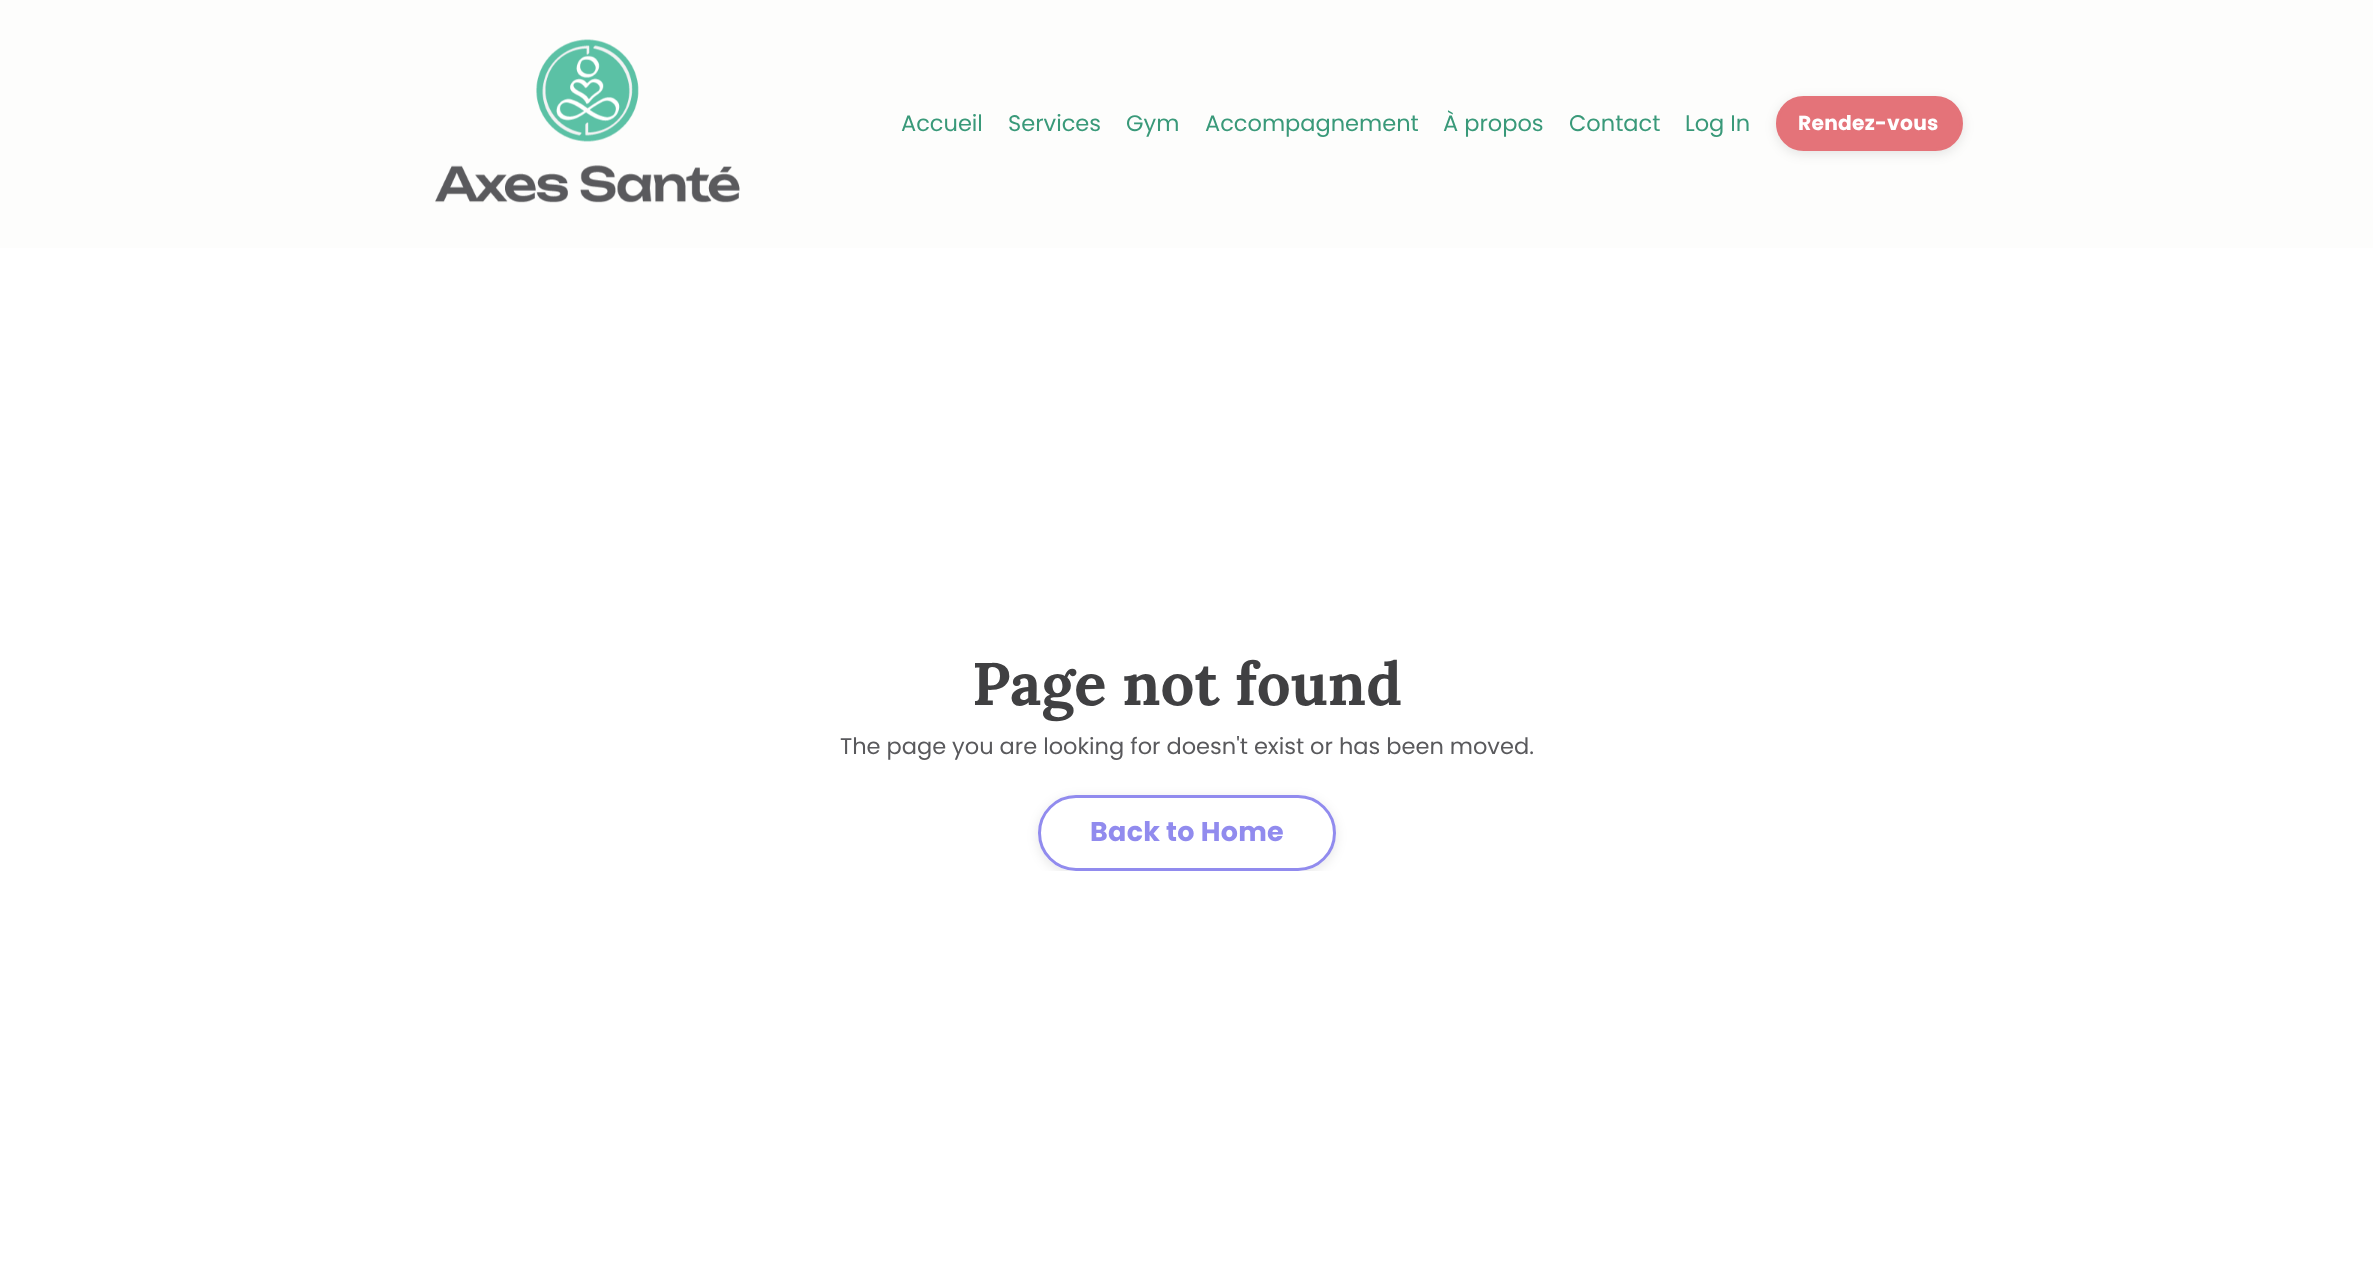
<?xml version="1.0" encoding="UTF-8"?>
<svg xmlns="http://www.w3.org/2000/svg" width="2373" height="1269">
    <defs>
        <filter id="blur1" x="-50%" y="-200%" width="200%" height="500%"><feGaussianBlur stdDeviation="6"/></filter>
        <clipPath id="clip1"><rect x="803" y="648" width="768" height="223" rx="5"/></clipPath>
        <clipPath id="clip2"><path d="M 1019 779 H 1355 V 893 H 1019 Z M 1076 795 H 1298 C 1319 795 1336 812 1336 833 C 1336 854 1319 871 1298 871 H 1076 C 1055 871 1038 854 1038 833 C 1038 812 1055 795 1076 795 Z" clip-rule="evenodd"/></clipPath>
    </defs>
    <rect width="100%" height="100%" fill="#FFFFFF"/>
    <rect x="0" y="0" width="2373" height="248" fill="#FDFDFC"/>
    <image x="435" y="39" width="305" height="164" href="img_01.png"/>
    <text x="901" y="131" font-family="Poppins" font-size="22.5" fill="#399979">Accueil</text>
    <text x="1008" y="131" font-family="Poppins" font-size="22.5" fill="#399979">Services</text>
    <text x="1126" y="131" font-family="Poppins" font-size="22.5" fill="#399979">Gym</text>
    <text x="1205" y="131" font-family="Poppins" font-size="22.5" fill="#399979">Accompagnement</text>
    <text x="1443" y="131" font-family="Poppins" font-size="22.5" fill="#399979">À propos</text>
    <text x="1569" y="131" font-family="Poppins" font-size="22.5" fill="#399979">Contact</text>
    <text x="1685" y="131" font-family="Poppins" font-size="22.5" fill="#399979">Log In</text>
    <rect x="1776" y="99" width="187" height="55" rx="27.5" fill="#000000" fill-opacity="0.1" filter="url(#blur1)"/>
    <rect x="1777.5" y="97.5" width="184" height="52" rx="26" fill="#E47379" stroke="#E47379" stroke-width="3"/>
    <text x="1798" y="130" font-family="Poppins" font-size="20.25" font-weight="700" letter-spacing="0.25" fill="#FFFFFF">Rendez-vous</text>
    <text x="972" y="705" font-family="Lora" font-size="60" font-weight="700" fill="#404042">Page not found</text>
    <text x="840" y="754" font-family="Poppins" font-size="22.5" fill="#59595C">The page you are looking for doesn't exist or has been moved.</text>
    <g clip-path="url(#clip1)">
        <g clip-path="url(#clip2)">
            <rect x="1038" y="798" width="298" height="76" rx="38" fill="#000000" fill-opacity="0.1" filter="url(#blur1)"/>
        </g>
    </g>
    <rect x="1039.5" y="796.5" width="295" height="73" rx="36.5" fill="none" stroke="#918BEE" stroke-width="3"/>
    <text x="1090" y="841" font-family="Poppins" font-size="27" font-weight="700" letter-spacing="0.25" fill="#918BEE">Back to Home</text>
</svg>
